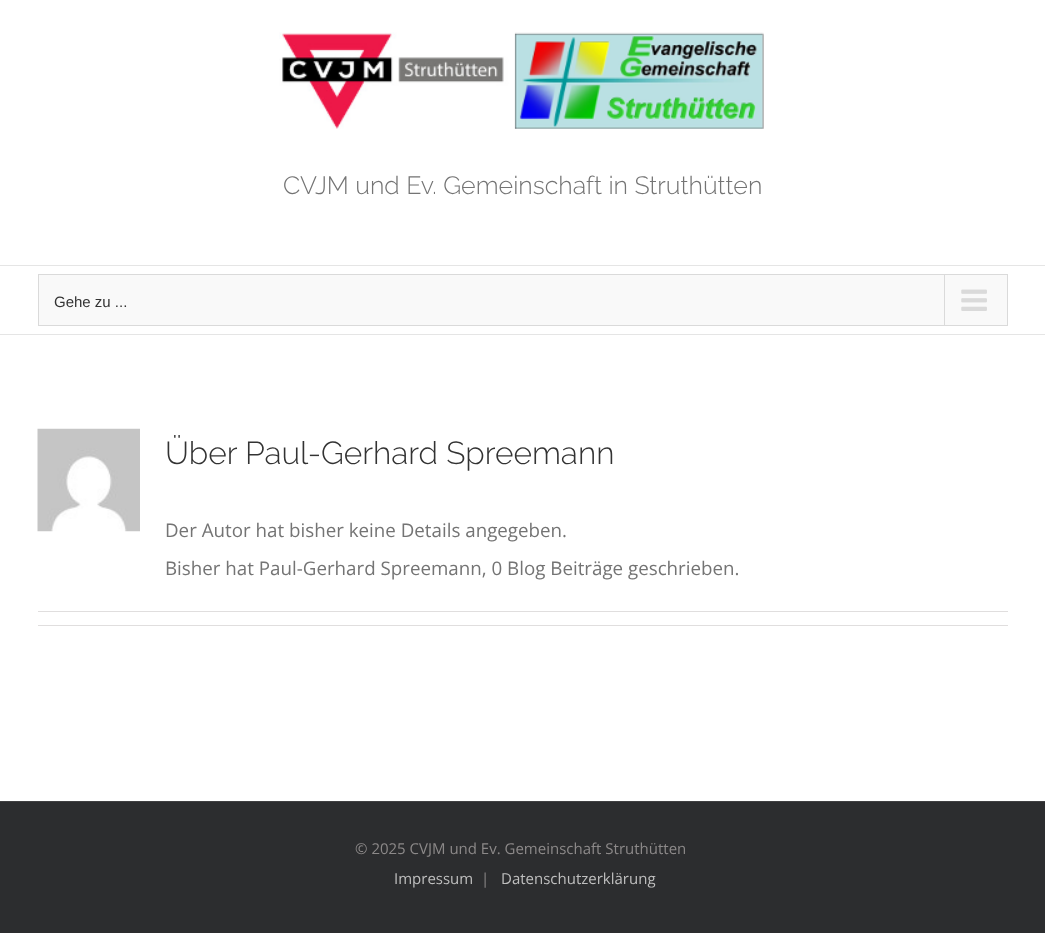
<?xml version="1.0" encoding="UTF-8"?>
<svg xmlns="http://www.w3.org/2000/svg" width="1045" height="933">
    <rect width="100%" height="100%" fill="#FFFFFF"/>
    <rect x="0" y="265" width="1045" height="1" fill="#E5E5E5"/>
    <image x="279" y="32" width="485" height="97" href="img_01.png"/>
    <text x="283" y="194" font-family="Raleway" font-size="25" font-weight="300" fill="#747474">CVJM und Ev. Gemeinschaft in Struthütten</text>
    <rect x="0" y="334" width="1045" height="1" fill="#E5E5E5"/>
    <rect x="38.5" y="274.5" width="969" height="51" fill="#F9F9F9" stroke="#DADADA"/>
    <text x="54" y="307" font-family="Liberation Sans" font-size="15" fill="#333333">Gehe zu ...</text>
    <rect x="944" y="275" width="1" height="50" fill="#DADADA"/>
    <image x="961" y="289" width="26" height="22" href="img_02.png"/>
    <image x="37" y="428" width="103" height="104" href="img_03.png"/>
    <text x="165" y="464" font-family="Raleway" font-size="31.7" font-weight="300" fill="#333333">Über Paul-Gerhard Spreemann</text>
    <text x="165" y="537" font-family="Open Sans" font-size="18.75" fill="#747474">Der Autor hat bisher keine Details angegeben.</text>
    <text x="165" y="575" font-family="Open Sans" font-size="18.75" fill="#747474">Bisher hat Paul-Gerhard Spreemann, 0 Blog Beiträge geschrieben.</text>
    <rect x="38" y="611" width="970" height="1" fill="#E0DEDE"/>
    <rect x="38" y="625" width="970" height="1" fill="#E0DEDE"/>
    <rect x="0" y="802" width="1045" height="131" fill="#2C2D2F"/>
    <rect x="0" y="801" width="1045" height="1" fill="#404042"/>
    <text x="355" y="854" font-family="Open Sans" font-size="15" fill="#8C8989">© 2025 CVJM und Ev. Gemeinschaft Struthütten</text>
    <text x="394" y="884" font-family="Open Sans" font-size="15" fill="#BFBFBF">Impressum</text>
    <text x="481" y="884" font-family="Open Sans" font-size="15" fill="#8C8989">|</text>
    <text x="501" y="884" font-family="Open Sans" font-size="15" fill="#BFBFBF">Datenschutzerklärung</text>
</svg>
